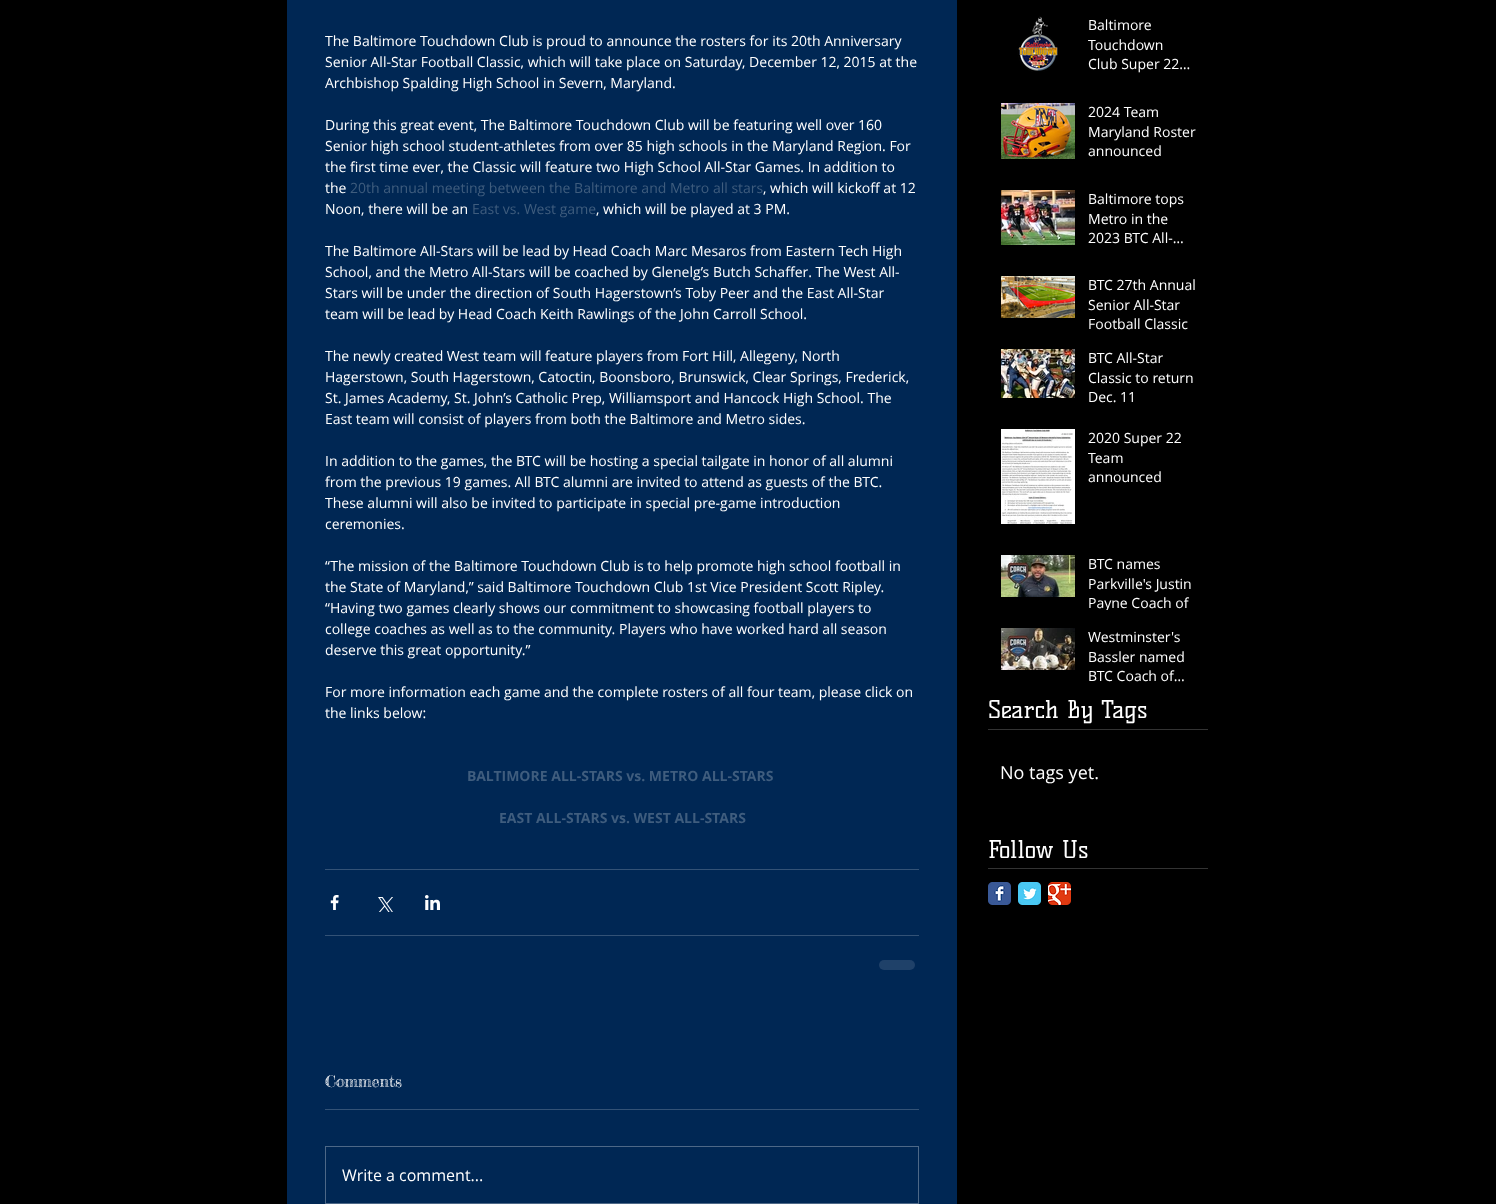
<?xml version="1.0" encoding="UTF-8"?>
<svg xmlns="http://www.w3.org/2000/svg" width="1496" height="1204">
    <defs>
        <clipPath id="clip1"><rect x="1088" y="554" width="108" height="56"/></clipPath>
    </defs>
    <rect width="100%" height="100%" fill="#000000"/>
    <rect x="287" y="0" width="670" height="1204" fill="#002754"/>
    <text font-family="Open Sans" font-size="14" fill="#FFFFFF">
        <tspan x="325" y="46">The Baltimore Touchdown Club is proud to announce the rosters for its 20th Anniversary</tspan>
        <tspan x="325" y="67">Senior All-Star Football Classic, which will take place on Saturday, December 12, 2015 at the</tspan>
        <tspan x="325" y="88">Archbishop Spalding High School in Severn, Maryland.</tspan>
    </text>
    <text font-family="Open Sans" font-size="14" fill="#FFFFFF">
        <tspan x="325" y="130">During this great event, The Baltimore Touchdown Club will be featuring well over 160</tspan>
        <tspan x="325" y="151">Senior high school student-athletes from over 85 high schools in the Maryland Region. For</tspan>
        <tspan x="325" y="172">the first time ever, the Classic will feature two High School All-Star Games. In addition to</tspan>
        <tspan x="325" y="193">the</tspan>
    </text>
    <text x="350" y="193" font-family="Open Sans" font-size="14" fill="#3F5D7E">20th annual meeting between the Baltimore and Metro all stars</text>
    <text x="763" y="193" font-family="Open Sans" font-size="14" fill="#FFFFFF">, which will kickoff at 12</text>
    <text x="325" y="214" font-family="Open Sans" font-size="14" fill="#FFFFFF">Noon, there will be an</text>
    <text x="472" y="214" font-family="Open Sans" font-size="14" fill="#3F5D7E">East vs. West game</text>
    <text x="596" y="214" font-family="Open Sans" font-size="14" fill="#FFFFFF">, which will be played at 3 PM.</text>
    <text font-family="Open Sans" font-size="14" fill="#FFFFFF">
        <tspan x="325" y="256">The Baltimore All-Stars will be lead by Head Coach Marc Mesaros from Eastern Tech High</tspan>
        <tspan x="325" y="277">School, and the Metro All-Stars will be coached by Glenelg’s Butch Schaffer. The West All-</tspan>
        <tspan x="325" y="298">Stars will be under the direction of South Hagerstown’s Toby Peer and the East All-Star</tspan>
        <tspan x="325" y="319">team will be lead by Head Coach Keith Rawlings of the John Carroll School.</tspan>
    </text>
    <text font-family="Open Sans" font-size="14" fill="#FFFFFF">
        <tspan x="325" y="361">The newly created West team will feature players from Fort Hill, Allegeny, North</tspan>
        <tspan x="325" y="382">Hagerstown, South Hagerstown, Catoctin, Boonsboro, Brunswick, Clear Springs, Frederick,</tspan>
        <tspan x="325" y="403">St. James Academy, St. John’s Catholic Prep, Williamsport and Hancock High School. The</tspan>
        <tspan x="325" y="424">East team will consist of players from both the Baltimore and Metro sides.</tspan>
    </text>
    <text font-family="Open Sans" font-size="14" fill="#FFFFFF">
        <tspan x="325" y="466">In addition to the games, the BTC will be hosting a special tailgate in honor of all alumni</tspan>
        <tspan x="325" y="487">from the previous 19 games. All BTC alumni are invited to attend as guests of the BTC.</tspan>
        <tspan x="325" y="508">These alumni will also be invited to participate in special pre-game introduction</tspan>
        <tspan x="325" y="529">ceremonies.</tspan>
    </text>
    <text font-family="Open Sans" font-size="14" fill="#FFFFFF">
        <tspan x="325" y="571">“The mission of the Baltimore Touchdown Club is to help promote high school football in</tspan>
        <tspan x="325" y="592">the State of Maryland,” said Baltimore Touchdown Club 1st Vice President Scott Ripley.</tspan>
        <tspan x="325" y="613">“Having two games clearly shows our commitment to showcasing football players to</tspan>
        <tspan x="325" y="634">college coaches as well as to the community. Players who have worked hard all season</tspan>
        <tspan x="325" y="655">deserve this great opportunity.”</tspan>
    </text>
    <text font-family="Open Sans" font-size="14" fill="#FFFFFF">
        <tspan x="325" y="697">For more information each game and the complete rosters of all four team, please click on</tspan>
        <tspan x="325" y="718">the links below:</tspan>
    </text>
    <text x="467" y="781" font-family="Open Sans" font-size="14" font-weight="700" fill="#3F5D7E">BALTIMORE ALL-STARS vs. METRO ALL-STARS</text>
    <text x="499" y="823" font-family="Open Sans" font-size="14" font-weight="700" fill="#3F5D7E">EAST ALL-STARS vs. WEST ALL-STARS</text>
    <rect x="325" y="869" width="594" height="1" fill="#335276"/>
    <image x="330" y="895" width="9" height="15" href="img_01.png"/>
    <image x="378" y="897" width="15" height="15" href="img_02.png"/>
    <image x="425" y="895" width="15" height="15" href="img_03.png"/>
    <rect x="325" y="935" width="594" height="1" fill="#335276"/>
    <rect x="879" y="960" width="36" height="10" rx="5" fill="#1F4169"/>
    <text x="325" y="1087" font-family="Fredericka the Great" font-size="16" fill="#FFFFFF">Comments</text>
    <rect x="325" y="1109" width="594" height="1" fill="#335276"/>
    <rect x="325.5" y="1146.5" width="593" height="57" fill="none" stroke="#4D6887"/>
    <text x="342" y="1181" font-family="Open Sans" font-size="16" fill="#FFFFFF">Write a comment...</text>
    <image x="1010" y="16" width="57" height="56" href="img_04.png"/>
    <text font-family="Open Sans" font-size="14" fill="#FFFFFF">
        <tspan x="1088" y="30">Baltimore</tspan>
        <tspan x="1088" y="50">Touchdown</tspan>
        <tspan x="1088" y="69">Club Super 22…</tspan>
    </text>
    <image x="1001" y="103" width="74" height="56" href="img_05.png"/>
    <text font-family="Open Sans" font-size="14" fill="#FFFFFF">
        <tspan x="1088" y="117">2024 Team</tspan>
        <tspan x="1088" y="137">Maryland Roster</tspan>
        <tspan x="1088" y="156">announced</tspan>
    </text>
    <image x="1001" y="190" width="74" height="55" href="img_06.png"/>
    <text font-family="Open Sans" font-size="14" fill="#FFFFFF">
        <tspan x="1088" y="204">Baltimore tops</tspan>
        <tspan x="1088" y="224">Metro in the</tspan>
        <tspan x="1088" y="243">2023 BTC All-…</tspan>
    </text>
    <image x="1001" y="276" width="74" height="42" href="img_07.png"/>
    <text font-family="Open Sans" font-size="14" fill="#FFFFFF">
        <tspan x="1088" y="290">BTC 27th Annual</tspan>
        <tspan x="1088" y="310">Senior All-Star</tspan>
        <tspan x="1088" y="329">Football Classic</tspan>
    </text>
    <image x="1001" y="349" width="74" height="49" href="img_08.png"/>
    <text font-family="Open Sans" font-size="14" fill="#FFFFFF">
        <tspan x="1088" y="363">BTC All-Star</tspan>
        <tspan x="1088" y="383">Classic to return</tspan>
        <tspan x="1088" y="402">Dec. 11</tspan>
    </text>
    <image x="1001" y="429" width="74" height="95" href="img_09.png"/>
    <text font-family="Open Sans" font-size="14" fill="#FFFFFF">
        <tspan x="1088" y="443">2020 Super 22</tspan>
        <tspan x="1088" y="463">Team</tspan>
        <tspan x="1088" y="482">announced</tspan>
    </text>
    <image x="1001" y="555" width="74" height="42" href="img_10.png"/>
    <text font-family="Open Sans" font-size="14" fill="#FFFFFF">
        <tspan x="1088" y="569">BTC names</tspan>
        <tspan x="1088" y="589">Parkville's Justin</tspan>
    </text>
    <g clip-path="url(#clip1)">
        <text x="1088" y="608" font-family="Open Sans" font-size="14" fill="#FFFFFF">Payne Coach of</text>
    </g>
    <image x="1001" y="628" width="74" height="42" href="img_11.png"/>
    <text font-family="Open Sans" font-size="14" fill="#FFFFFF">
        <tspan x="1088" y="642">Westminster's</tspan>
        <tspan x="1088" y="662">Bassler named</tspan>
        <tspan x="1088" y="681">BTC Coach of…</tspan>
    </text>
    <text x="988" y="718" font-family="Kelly Slab" font-size="24" fill="#FFFFFF">Search By Tags</text>
    <rect x="988" y="729" width="220" height="1" fill="#333333"/>
    <text x="1000" y="779" font-family="Open Sans" font-size="18" fill="#FFFFFF">No tags yet.</text>
    <text x="988" y="858" font-family="Kelly Slab" font-size="24" fill="#FFFFFF">Follow Us</text>
    <rect x="988" y="868" width="220" height="1" fill="#333333"/>
    <image x="988" y="882" width="23" height="23" href="img_12.png"/>
    <image x="1018" y="882" width="23" height="23" href="img_13.png"/>
    <image x="1048" y="882" width="23" height="23" href="img_14.png"/>
</svg>
